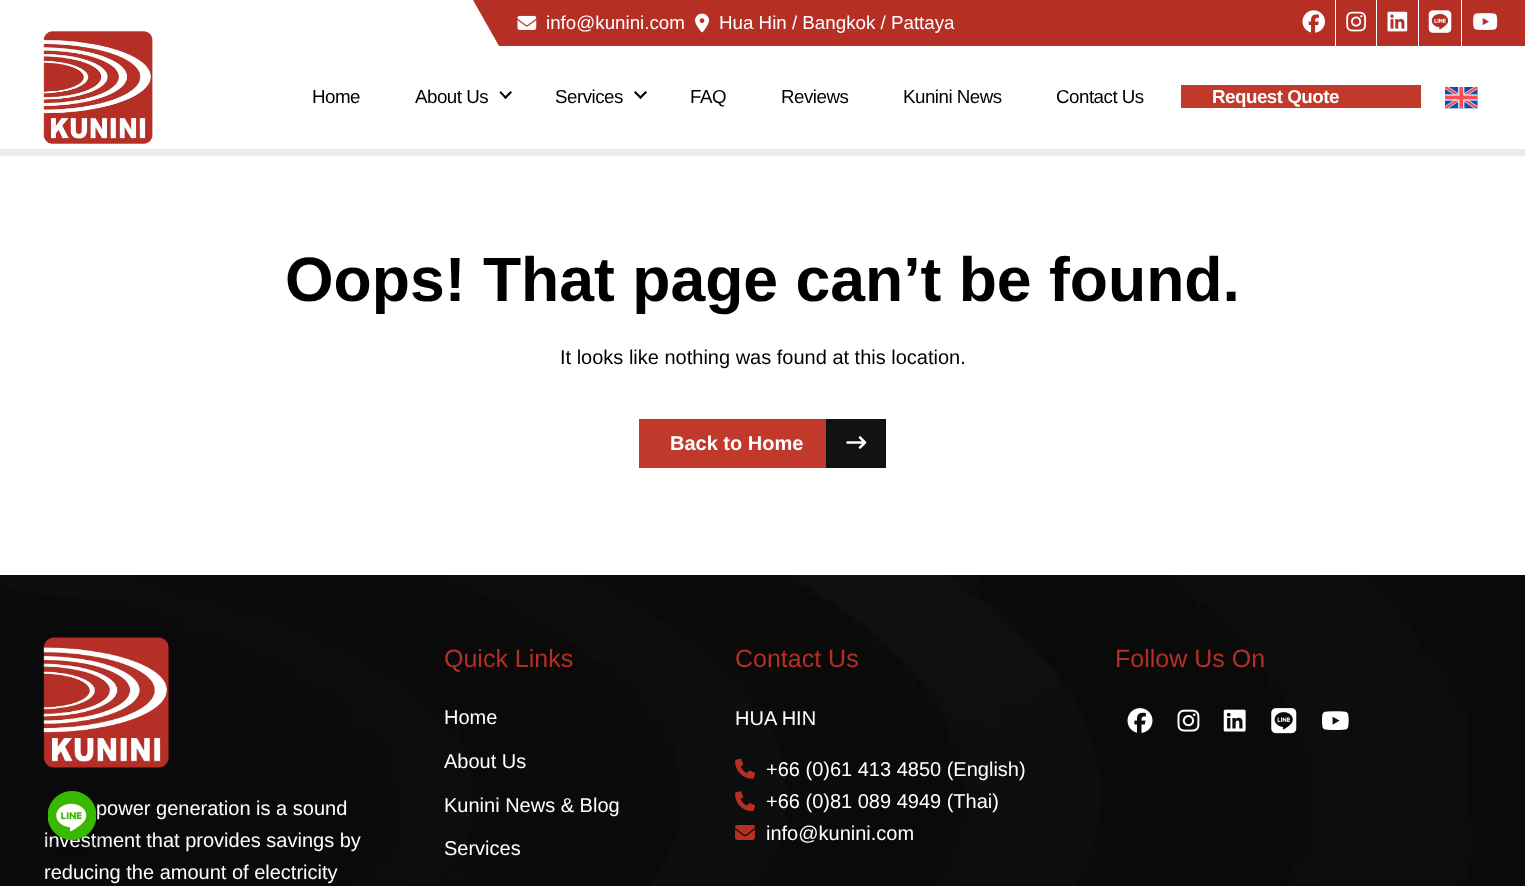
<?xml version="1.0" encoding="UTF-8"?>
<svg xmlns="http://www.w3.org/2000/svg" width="1525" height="886">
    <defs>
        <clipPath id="clip1"><rect x="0" y="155" width="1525" height="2"/></clipPath>
        <filter id="blur1" x="-50%" y="-200%" width="200%" height="500%"><feGaussianBlur stdDeviation="1"/></filter>
        <clipPath id="clip2"><path d="M 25 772 H 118 V 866 H 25 Z M 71.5 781 C 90 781 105 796 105 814.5 V 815.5 C 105 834 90 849 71.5 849 C 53 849 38 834 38 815.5 V 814.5 C 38 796 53 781 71.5 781 Z" clip-rule="evenodd"/></clipPath>
        <filter id="blur2" x="-50%" y="-200%" width="200%" height="500%"><feGaussianBlur stdDeviation="4"/></filter>
    </defs>
    <rect width="100%" height="100%" fill="#FFFFFF"/>
    <g clip-path="url(#clip1)">
        <rect x="0" y="26" width="1525" height="130" fill="#11111A" fill-opacity="0.1" filter="url(#blur1)"/>
    </g>
    <rect x="0" y="149" width="1525" height="6" fill="#EBEBEB"/>
    <image x="43" y="31" width="110" height="113" href="img_01.png"/>
    <path d="M 473 0 H 1525 V 46 H 499 Z" fill="#B52F25"/>
    <image x="517" y="15" width="20" height="15" href="img_02.png"/>
    <text x="546" y="29" font-family="Liberation Sans" font-size="18.75" fill="#FFFFFF">info@kunini.com</text>
    <image x="695" y="13" width="15" height="20" href="img_03.png"/>
    <text x="719" y="29" font-family="Liberation Sans" font-size="18.75" fill="#FFFFFF">Hua Hin / Bangkok / Pattaya</text>
    <rect x="1335" y="0" width="1" height="46" fill="#FFFFFF"/>
    <image x="1302" y="10" width="23" height="23" href="img_04.png"/>
    <rect x="1376" y="0" width="1" height="46" fill="#FFFFFF"/>
    <image x="1346" y="11" width="20" height="21" href="img_05.png"/>
    <rect x="1418" y="0" width="1" height="46" fill="#FFFFFF"/>
    <image x="1387" y="11" width="21" height="21" href="img_06.png"/>
    <rect x="1461" y="0" width="1" height="46" fill="#FFFFFF"/>
    <image x="1428" y="10" width="24" height="23" href="img_07.png"/>
    <image x="1473" y="13" width="25" height="17" href="img_08.png"/>
    <text x="312" y="103" font-family="Liberation Sans" font-size="18.75" letter-spacing="-0.5" fill="#000000">Home</text>
    <text x="415" y="103" font-family="Liberation Sans" font-size="18.75" letter-spacing="-0.5" fill="#000000">About Us</text>
    <path d="M 499.5 92.5 L 500.5 91 L 507 97.5 L 505.5 99 Z" fill="#000000"/>
    <path d="M 504 97.5 L 510.5 91 L 512 92.5 L 505.5 99 Z" fill="#000000"/>
    <text x="555" y="103" font-family="Liberation Sans" font-size="18.75" letter-spacing="-0.5" fill="#000000">Services</text>
    <path d="M 634 92.5 L 635.5 91 L 642 97.5 L 640.5 99 Z" fill="#000000"/>
    <path d="M 639 97.5 L 645.5 91 L 647 92.5 L 640.5 99 Z" fill="#000000"/>
    <text x="690" y="103" font-family="Liberation Sans" font-size="18.75" letter-spacing="-0.5" fill="#000000">FAQ</text>
    <text x="781" y="103" font-family="Liberation Sans" font-size="18.75" letter-spacing="-0.5" fill="#000000">Reviews</text>
    <text x="903" y="103" font-family="Liberation Sans" font-size="18.75" letter-spacing="-0.5" fill="#000000">Kunini News</text>
    <text x="1056" y="103" font-family="Liberation Sans" font-size="18.75" letter-spacing="-0.5" fill="#000000">Contact Us</text>
    <rect x="1181" y="85" width="240" height="23" fill="#C0392B"/>
    <text x="1212" y="103" font-family="Liberation Sans" font-size="18.75" font-weight="700" letter-spacing="-0.5" fill="#FFFFFF">Request Quote</text>
    <image x="1445" y="86" width="33" height="23" href="img_09.png"/>
    <text x="285" y="301" font-family="Liberation Sans" font-size="62.5" font-weight="700" fill="#000000">Oops! That page can’t be found.</text>
    <text x="560" y="364" font-family="Liberation Sans" font-size="20" fill="#000000">It looks like nothing was found at this location.</text>
    <rect x="639" y="419" width="187" height="49" fill="#C0392B"/>
    <text x="670" y="450" font-family="Liberation Sans" font-size="20" font-weight="700" fill="#FFFFFF">Back to Home</text>
    <rect x="826" y="419" width="60" height="49" fill="#121212"/>
    <image x="846" y="436" width="21" height="13" href="img_10.png"/>
    <image x="0" y="575" width="1525" height="311" href="img_11.png"/>
    <image x="43" y="637" width="126" height="131" href="img_12.png"/>
    <text x="96" y="815" font-family="Liberation Sans" font-size="20" fill="#FFFFFF">power generation is a sound</text>
    <text font-family="Liberation Sans" font-size="20" fill="#FFFFFF">
        <tspan x="44" y="847">investment that provides savings by</tspan>
        <tspan x="44" y="879">reducing the amount of electricity</tspan>
    </text>
    <text x="444" y="667" font-family="Liberation Sans" font-size="25" fill="#B52F25">Quick Links</text>
    <text x="444" y="724" font-family="Liberation Sans" font-size="20" fill="#FFFFFF">Home</text>
    <text x="444" y="768" font-family="Liberation Sans" font-size="20" fill="#FFFFFF">About Us</text>
    <text x="444" y="812" font-family="Liberation Sans" font-size="20" fill="#FFFFFF">Kunini News &amp; Blog</text>
    <text x="444" y="855" font-family="Liberation Sans" font-size="20" fill="#FFFFFF">Services</text>
    <text x="735" y="667" font-family="Liberation Sans" font-size="25" fill="#B52F25">Contact Us</text>
    <text x="735" y="725" font-family="Liberation Sans" font-size="20" fill="#FFFFFF">HUA HIN</text>
    <image x="735" y="758" width="20" height="21" href="img_13.png"/>
    <text x="766" y="776" font-family="Liberation Sans" font-size="20" fill="#FFFFFF">+66 (0)61 413 4850 (English)</text>
    <image x="735" y="791" width="20" height="21" href="img_14.png"/>
    <text x="766" y="808" font-family="Liberation Sans" font-size="20" fill="#FFFFFF">+66 (0)81 089 4949 (Thai)</text>
    <image x="735" y="825" width="20" height="15" href="img_15.png"/>
    <text x="766" y="840" font-family="Liberation Sans" font-size="20" fill="#FFFFFF">info@kunini.com</text>
    <text x="1115" y="667" font-family="Liberation Sans" font-size="25" fill="#B52F25">Follow Us On</text>
    <image x="1127" y="708" width="26" height="25" href="img_16.png"/>
    <image x="1177" y="709" width="23" height="23" href="img_17.png"/>
    <image x="1223" y="709" width="23" height="23" href="img_18.png"/>
    <image x="1271" y="708" width="26" height="26" href="img_19.png"/>
    <image x="1322" y="711" width="27" height="19" href="img_20.png"/>
    <g clip-path="url(#clip2)">
        <rect x="38" y="785" width="67" height="68" rx="33.5" fill="#000000" fill-opacity="0.25" filter="url(#blur2)"/>
    </g>
    <image x="48" y="791" width="48" height="49" href="img_21.png"/>
</svg>
